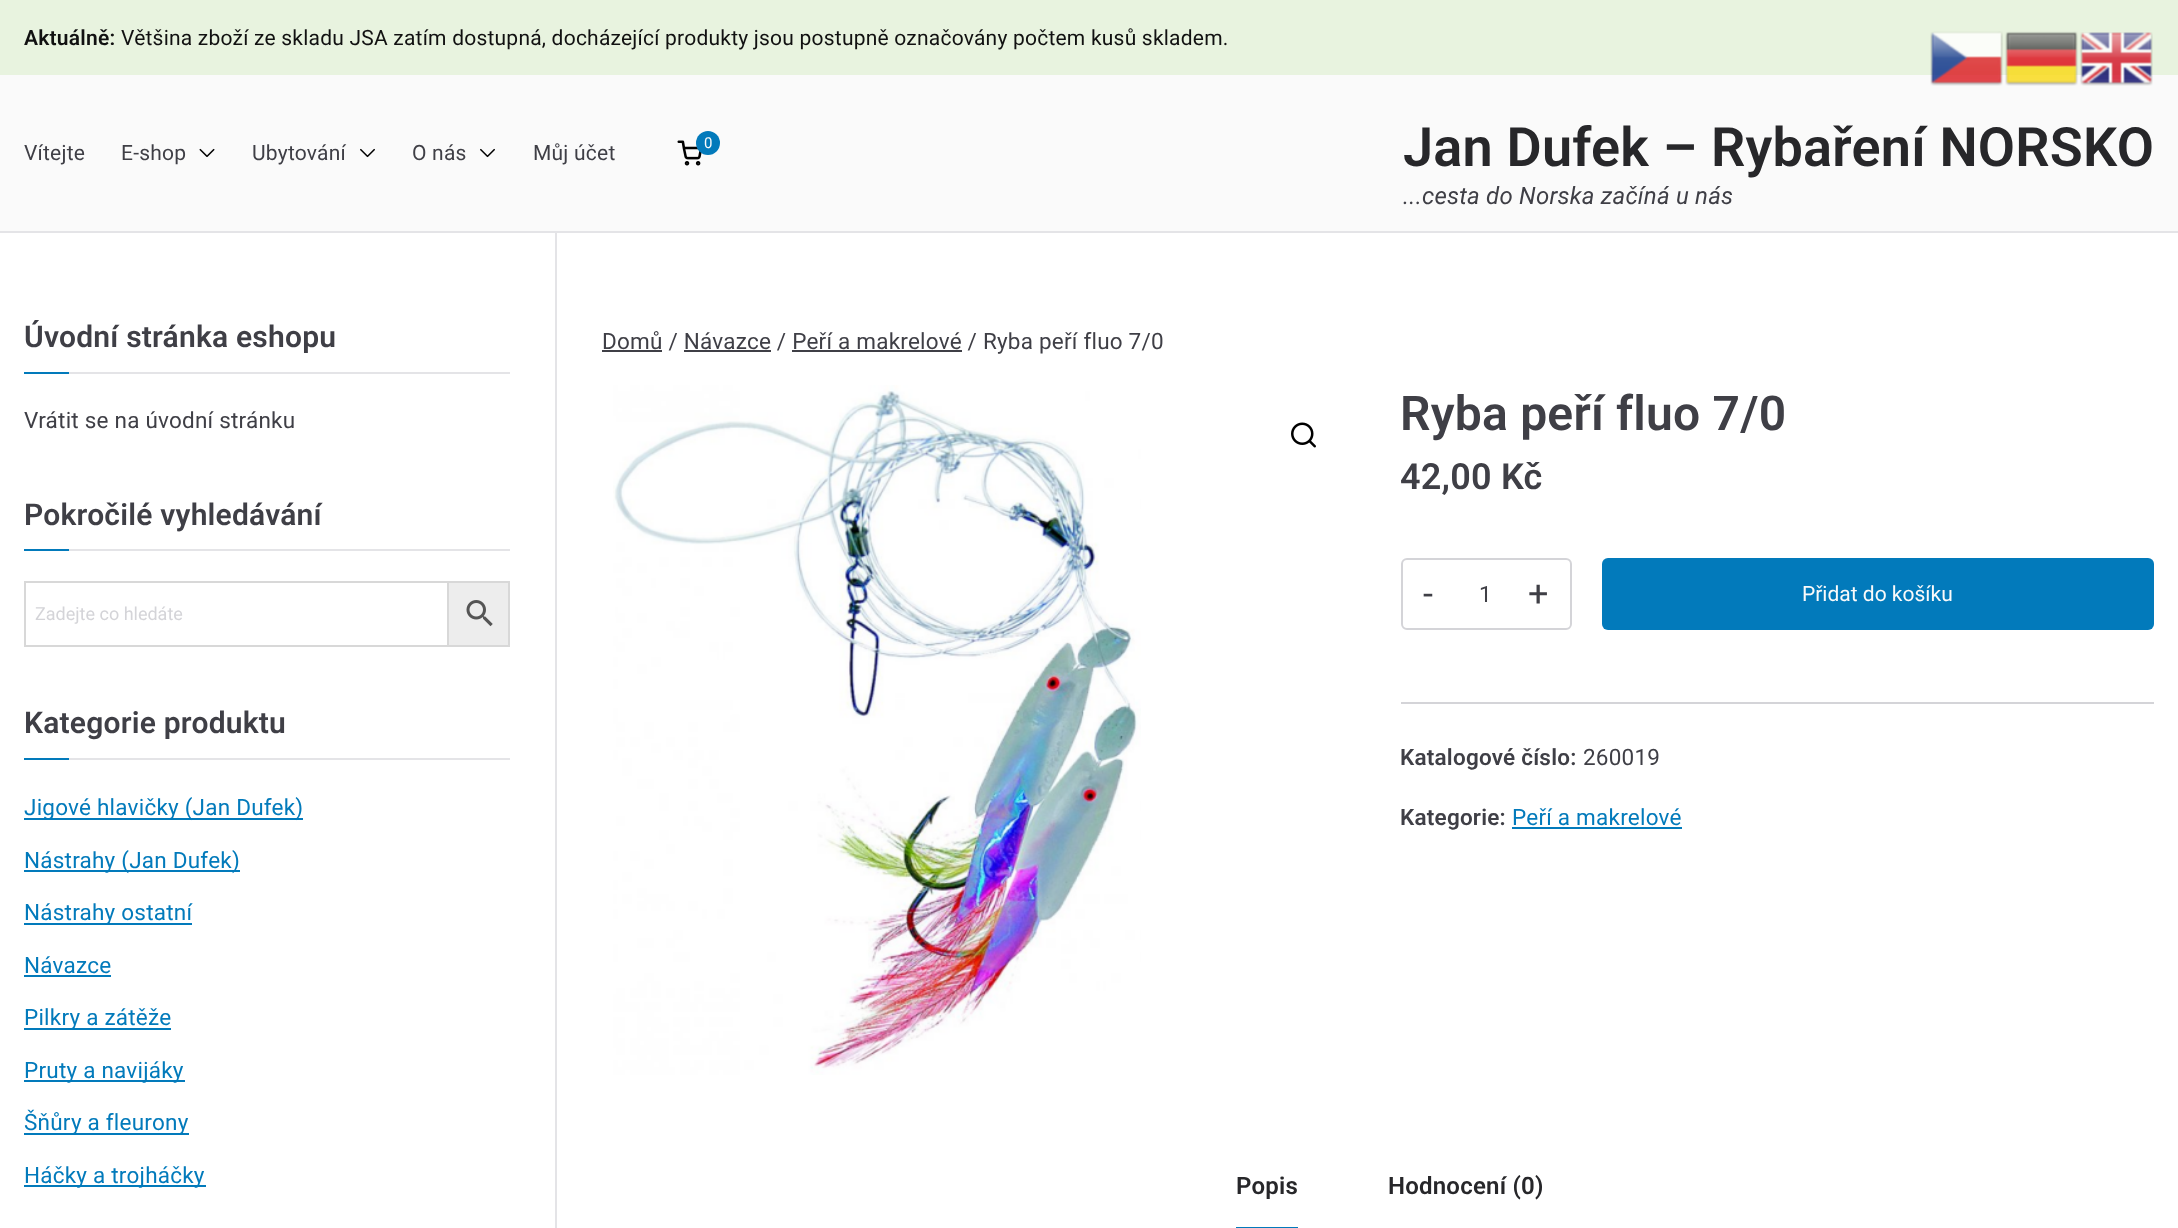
<?xml version="1.0" encoding="UTF-8"?>
<svg xmlns="http://www.w3.org/2000/svg" width="2178" height="1228">
    <rect width="100%" height="100%" fill="#FAFAFA"/>
    <rect x="0" y="231" width="2178" height="2" fill="#E4E4E7"/>
    <rect x="0" y="0" width="2178" height="75" fill="#E8F3DF"/>
    <text x="24" y="45" font-family="Roboto" font-size="21" font-weight="600" letter-spacing="0.22" fill="#111111">Aktuálně:</text>
    <text x="121" y="45" font-family="Roboto" font-size="21" letter-spacing="0.22" fill="#111111">Většina zboží ze skladu JSA zatím dostupná, docházející produkty jsou postupně označovány počtem kusů skladem.</text>
    <text x="24" y="160" font-family="Roboto" font-size="21" letter-spacing="0.22" fill="#3F3F46">Vítejte</text>
    <text x="121" y="160" font-family="Roboto" font-size="21" letter-spacing="0.22" fill="#3F3F46">E-shop</text>
    <image x="199" y="148" width="16" height="9" href="img_01.png"/>
    <text x="252" y="160" font-family="Roboto" font-size="21" letter-spacing="0.22" fill="#3F3F46">Ubytování</text>
    <image x="360" y="148" width="15" height="10" href="img_02.png"/>
    <text x="412" y="160" font-family="Roboto" font-size="21" letter-spacing="0.22" fill="#3F3F46">O nás</text>
    <image x="480" y="148" width="15" height="10" href="img_02.png"/>
    <text x="533" y="160" font-family="Roboto" font-size="21" letter-spacing="0.22" fill="#3F3F46">Můj účet</text>
    <image x="677" y="140" width="25" height="26" href="img_03.png"/>
    <circle cx="708" cy="143" r="12" fill="#027ABB"/>
    <text x="704" y="148" font-family="Roboto" font-size="15" letter-spacing="0.22" fill="#FAFAFA">0</text>
    <text x="1403" y="166" font-family="Roboto" font-size="54" font-weight="600" letter-spacing="0.22" fill="#27272A">Jan Dufek – Rybaření NORSKO</text>
    <text x="1403" y="204" font-family="Roboto" font-size="24" font-style="italic" letter-spacing="0.22" fill="#3F3F46">...cesta do Norska začíná u nás</text>
    <rect x="0" y="233" width="2178" height="995" fill="#FFFFFF"/>
    <rect x="555" y="233" width="2" height="995" fill="#E4E4E7"/>
    <rect x="69" y="372" width="441" height="2" fill="#E4E4E7"/>
    <text x="24" y="347" font-family="Roboto" font-size="30" font-weight="600" letter-spacing="0.22" fill="#3F3F46">Úvodní stránka eshopu</text>
    <rect x="24" y="372" width="45" height="2" fill="#027ABB"/>
    <text x="24" y="428" font-family="Roboto" font-size="22.5" letter-spacing="0.22" fill="#3F3F46">Vrátit se na úvodní stránku</text>
    <rect x="69" y="549" width="441" height="2" fill="#E4E4E7"/>
    <text x="24" y="525" font-family="Roboto" font-size="30" font-weight="600" letter-spacing="0.22" fill="#3F3F46">Pokročilé vyhledávání</text>
    <rect x="24" y="549" width="45" height="2" fill="#027ABB"/>
    <rect x="448" y="582" width="61" height="64" fill="#EDEDED" stroke="#D8D8D8" stroke-width="2"/>
    <rect x="25" y="582" width="423" height="64" fill="none" stroke="#D8D8D8" stroke-width="2"/>
    <text x="35" y="620" font-family="Roboto" font-size="18" fill="#D4D4D8">Zadejte co hledáte</text>
    <image x="466" y="600" width="27" height="27" href="img_04.png"/>
    <rect x="69" y="758" width="441" height="2" fill="#E4E4E7"/>
    <text x="24" y="733" font-family="Roboto" font-size="30" font-weight="600" letter-spacing="0.22" fill="#3F3F46">Kategorie produktu</text>
    <rect x="24" y="758" width="45" height="2" fill="#027ABB"/>
    <rect x="24" y="818" width="279" height="2" fill="#027ABB"/>
    <text x="24" y="815" font-family="Roboto" font-size="22.5" letter-spacing="0.22" fill="#027ABB">Jigové hlavičky (Jan Dufek)</text>
    <rect x="24" y="870" width="216" height="2" fill="#027ABB"/>
    <text x="24" y="868" font-family="Roboto" font-size="22.5" letter-spacing="0.22" fill="#027ABB">Nástrahy (Jan Dufek)</text>
    <rect x="24" y="923" width="168" height="2" fill="#027ABB"/>
    <text x="24" y="920" font-family="Roboto" font-size="22.5" letter-spacing="0.22" fill="#027ABB">Nástrahy ostatní</text>
    <text x="24" y="973" font-family="Roboto" font-size="22.5" letter-spacing="0.22" fill="#027ABB">Návazce</text>
    <rect x="24" y="975" width="87" height="2" fill="#027ABB"/>
    <rect x="24" y="1028" width="147" height="2" fill="#027ABB"/>
    <text x="24" y="1025" font-family="Roboto" font-size="22.5" letter-spacing="0.22" fill="#027ABB">Pilkry a zátěže</text>
    <rect x="24" y="1080" width="161" height="2" fill="#027ABB"/>
    <text x="24" y="1078" font-family="Roboto" font-size="22.5" letter-spacing="0.22" fill="#027ABB">Pruty a navijáky</text>
    <rect x="24" y="1133" width="165" height="2" fill="#027ABB"/>
    <text x="24" y="1130" font-family="Roboto" font-size="22.5" letter-spacing="0.22" fill="#027ABB">Šňůry a fleurony</text>
    <rect x="24" y="1185" width="182" height="2" fill="#027ABB"/>
    <text x="24" y="1183" font-family="Roboto" font-size="22.5" letter-spacing="0.22" fill="#027ABB">Háčky a trojháčky</text>
    <rect x="602" y="350" width="60" height="2" fill="#3F3F46"/>
    <text x="602" y="349" font-family="Roboto" font-size="22.5" letter-spacing="0.22" fill="#3F3F46">Domů / Návazce / Peří a makrelové / Ryba peří fluo 7/0</text>
    <rect x="684" y="350" width="87" height="2" fill="#3F3F46"/>
    <rect x="792" y="350" width="170" height="2" fill="#3F3F46"/>
    <image x="613" y="385" width="528" height="690" href="img_05.png"/>
    <image x="1291" y="422" width="25" height="26" href="img_06.png"/>
    <text x="1400" y="430" font-family="Roboto" font-size="48" font-weight="600" letter-spacing="0.22" fill="#3F3F46">Ryba peří fluo 7/0</text>
    <text x="1400" y="489" font-family="Roboto" font-size="36" font-weight="600" letter-spacing="0.22" fill="#3F3F46">42,00 Kč</text>
    <rect x="1402" y="559" width="169" height="70" rx="5" fill="none" stroke="#D4D4D8" stroke-width="2"/>
    <text x="1423" y="606" font-family="Roboto" font-size="36" fill="#3F3F46">-</text>
    <text x="1479" y="602" font-family="Roboto" font-size="22.5" fill="#3F3F46">1</text>
    <text x="1528" y="606" font-family="Roboto" font-size="36" fill="#3F3F46">+</text>
    <rect x="1602" y="558" width="552" height="72" rx="6" fill="#027ABB"/>
    <text x="1802" y="601" font-family="Roboto" font-size="21" fill="#FAFAFA">Přidat do košíku</text>
    <rect x="1401" y="702" width="753" height="2" fill="#D4D4D8"/>
    <text x="1400" y="765" font-family="Roboto" font-size="22.5" font-weight="600" letter-spacing="0.22" fill="#3F3F46">Katalogové číslo:</text>
    <text x="1583" y="765" font-family="Roboto" font-size="22.5" letter-spacing="0.22" fill="#3F3F46">260019</text>
    <text x="1400" y="825" font-family="Roboto" font-size="22.5" font-weight="600" letter-spacing="0.22" fill="#3F3F46">Kategorie:</text>
    <text x="1512" y="825" font-family="Roboto" font-size="22.5" letter-spacing="0.22" fill="#027ABB">Peří a makrelové</text>
    <rect x="1512" y="827" width="170" height="2" fill="#027ABB"/>
    <rect x="1236" y="1227" width="62" height="1" fill="#027ABB"/>
    <text x="1236" y="1194" font-family="Roboto" font-size="24" font-weight="600" letter-spacing="0.22" fill="#27272A">Popis</text>
    <text x="1388" y="1194" font-family="Roboto" font-size="24" font-weight="600" letter-spacing="0.22" fill="#27272A">Hodnocení (0)</text>
    <image x="1930" y="31" width="73" height="55" href="img_07.png"/>
    <image x="2005" y="31" width="73" height="55" href="img_08.png"/>
    <image x="2080" y="32" width="73" height="54" href="img_09.png"/>
</svg>
